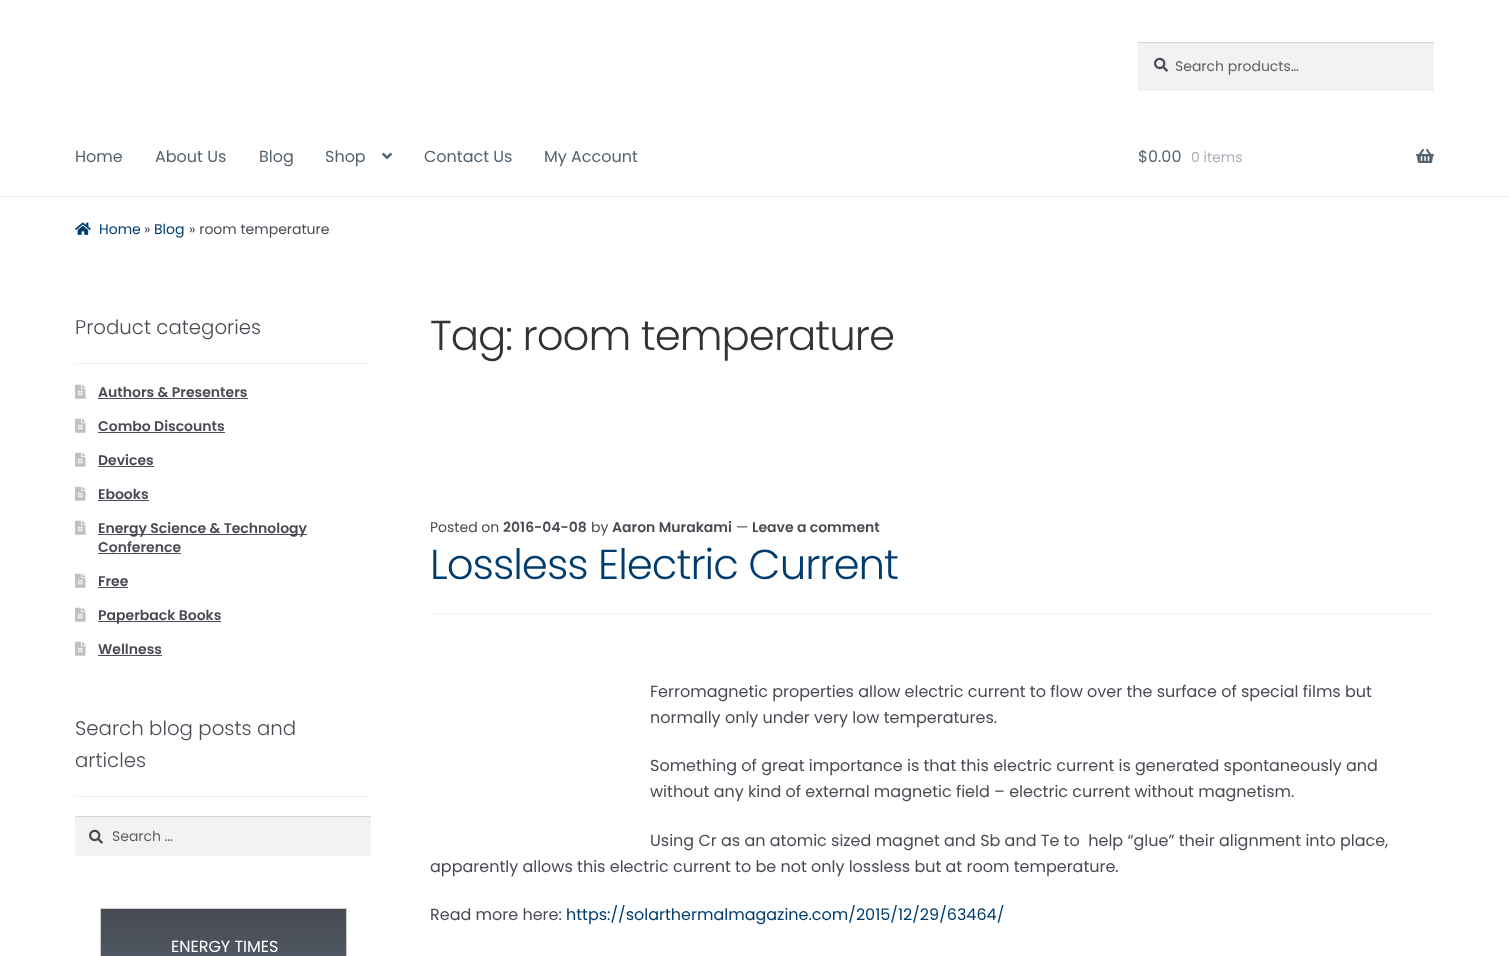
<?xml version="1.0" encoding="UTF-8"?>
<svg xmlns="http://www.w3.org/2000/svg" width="1509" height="956">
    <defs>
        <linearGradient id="g1" gradientUnits="userSpaceOnUse" x1="224" y1="909" x2="224" y2="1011"><stop offset="0" stop-color="#494B54"/><stop offset="1" stop-color="#536370"/></linearGradient>
    </defs>
    <rect width="100%" height="100%" fill="#FFFFFF"/>
    <rect x="0" y="196" width="1509" height="1" fill="#F0F0F0"/>
    <rect x="1138" y="43" width="296" height="48" fill="#F2F2F2"/>
    <image x="1154" y="57" width="14" height="15" href="img_01.png"/>
    <rect x="1138" y="42" width="296" height="1" fill="#D4D4D4"/>
    <text x="1175" y="71" font-family="Poppins" font-size="14" fill="#616161">Search products…</text>
    <text x="75" y="162" font-family="Poppins" font-size="16" fill="#536370">Home</text>
    <text x="155" y="162" font-family="Poppins" font-size="16" fill="#536370">About Us</text>
    <text x="259" y="162" font-family="Poppins" font-size="16" fill="#536370">Blog</text>
    <text x="325" y="162" font-family="Poppins" font-size="16" fill="#536370">Shop</text>
    <image x="382" y="152" width="10" height="8" href="img_02.png"/>
    <text x="424" y="162" font-family="Poppins" font-size="16" fill="#536370">Contact Us</text>
    <text x="544" y="162" font-family="Poppins" font-size="16" fill="#536370">My Account</text>
    <text x="1138" y="162" font-family="Poppins" font-size="16" fill="#536370">$0.00</text>
    <text x="1191" y="162" font-family="Poppins" font-size="14" fill="#A9B1B8">0 items</text>
    <image x="1416" y="149" width="18" height="14" href="img_03.png"/>
    <image x="75" y="222" width="16" height="13" href="img_04.png"/>
    <text x="99" y="234" font-family="Poppins" font-size="14" fill="#003D6E">Home</text>
    <text x="144" y="234" font-family="Poppins" font-size="14" fill="#494B54">»</text>
    <text x="154" y="234" font-family="Poppins" font-size="14" fill="#003D6E">Blog</text>
    <text x="189" y="234" font-family="Poppins" font-size="14" fill="#494B54">» room temperature</text>
    <rect x="75" y="363" width="296" height="1" fill="#F2F2F2"/>
    <text x="75" y="334" font-family="Poppins" font-size="19.75" font-weight="300" fill="#494B54">Product categories</text>
    <image x="75" y="384" width="11" height="15" href="img_05.png"/>
    <text x="98" y="397" font-family="Poppins" font-size="14" font-weight="600" fill="#494B54">Authors &amp; Presenters</text>
    <rect x="98" y="398" width="150" height="1" fill="#4E5059"/>
    <image x="75" y="418" width="11" height="15" href="img_05.png"/>
    <text x="98" y="431" font-family="Poppins" font-size="14" font-weight="600" fill="#494B54">Combo Discounts</text>
    <rect x="98" y="432" width="127" height="1" fill="#4E5059"/>
    <image x="75" y="452" width="11" height="15" href="img_05.png"/>
    <text x="98" y="465" font-family="Poppins" font-size="14" font-weight="600" fill="#494B54">Devices</text>
    <rect x="98" y="466" width="56" height="1" fill="#4E5059"/>
    <image x="75" y="486" width="11" height="15" href="img_05.png"/>
    <text x="98" y="499" font-family="Poppins" font-size="14" font-weight="600" fill="#494B54">Ebooks</text>
    <rect x="98" y="500" width="51" height="1" fill="#4E5059"/>
    <image x="75" y="520" width="11" height="15" href="img_05.png"/>
    <rect x="98" y="534" width="209" height="1" fill="#4E5059"/>
    <text font-family="Poppins" font-size="14" font-weight="600" fill="#494B54">
        <tspan x="98" y="533">Energy Science &amp; Technology</tspan>
        <tspan x="98" y="552">Conference</tspan>
    </text>
    <rect x="98" y="553" width="83" height="1" fill="#4E5059"/>
    <image x="75" y="573" width="11" height="15" href="img_05.png"/>
    <text x="98" y="586" font-family="Poppins" font-size="14" font-weight="600" fill="#494B54">Free</text>
    <rect x="98" y="587" width="30" height="1" fill="#4E5059"/>
    <image x="75" y="607" width="11" height="15" href="img_05.png"/>
    <rect x="98" y="621" width="123" height="1" fill="#4E5059"/>
    <text x="98" y="620" font-family="Poppins" font-size="14" font-weight="600" fill="#494B54">Paperback Books</text>
    <image x="75" y="641" width="11" height="15" href="img_05.png"/>
    <text x="98" y="654" font-family="Poppins" font-size="14" font-weight="600" fill="#494B54">Wellness</text>
    <rect x="98" y="655" width="64" height="1" fill="#4E5059"/>
    <rect x="75" y="796" width="296" height="1" fill="#F2F2F2"/>
    <text font-family="Poppins" font-size="19.75" font-weight="300" fill="#494B54">
        <tspan x="75" y="735">Search blog posts and</tspan>
        <tspan x="75" y="767">articles</tspan>
    </text>
    <rect x="75" y="817" width="296" height="39" fill="#F2F2F2"/>
    <image x="89" y="829" width="14" height="15" href="img_01.png"/>
    <rect x="75" y="816" width="296" height="1" fill="#D4D4D4"/>
    <text x="112" y="841" font-family="Poppins" font-size="14" fill="#616161">Search …</text>
    <rect x="100.5" y="908.5" width="246" height="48" fill="none" stroke="#CFCFCF"/>
    <rect x="101" y="909" width="245" height="47" fill="url(#g1)"/>
    <text x="171" y="952" font-family="Poppins" font-size="16" fill="#FFFFFF">ENERGY TIMES</text>
    <text x="430" y="350" font-family="Poppins" font-size="41.9" font-weight="300" letter-spacing="-1" fill="#333333">Tag: room temperature</text>
    <rect x="430" y="613" width="1004" height="1" fill="#F2F2F2"/>
    <text x="430" y="532" font-family="Poppins" font-size="14" fill="#494B54">Posted on</text>
    <text x="503" y="532" font-family="Poppins" font-size="14" font-weight="600" fill="#494B54">2016-04-08</text>
    <text x="591" y="532" font-family="Poppins" font-size="14" fill="#494B54">by</text>
    <text x="612" y="532" font-family="Poppins" font-size="14" font-weight="600" fill="#494B54">Aaron Murakami</text>
    <text x="736" y="532" font-family="Poppins" font-size="14" fill="#494B54">—</text>
    <text x="752" y="532" font-family="Poppins" font-size="14" font-weight="600" fill="#494B54">Leave a comment</text>
    <text x="430" y="579" font-family="Poppins" font-size="41.9" font-weight="300" letter-spacing="-1" fill="#003D6E">Lossless Electric Current</text>
    <text font-family="Poppins" font-size="16" fill="#494B54">
        <tspan x="650" y="697">Ferromagnetic properties allow electric current to flow over the surface of special films but</tspan>
        <tspan x="650" y="723">normally only under very low temperatures.</tspan>
    </text>
    <text font-family="Poppins" font-size="16" fill="#494B54">
        <tspan x="650" y="771">Something of great importance is that this electric current is generated spontaneously and</tspan>
        <tspan x="650" y="797">without any kind of external magnetic field – electric current without magnetism.</tspan>
    </text>
    <text x="650" y="846" font-family="Poppins" font-size="16" fill="#494B54" xml:space="preserve">Using Cr as an atomic sized magnet and Sb and Te to  help “glue” their alignment into place,</text>
    <text x="430" y="872" font-family="Poppins" font-size="16" fill="#494B54">apparently allows this electric current to be not only lossless but at room temperature.</text>
    <text x="430" y="920" font-family="Poppins" font-size="16" fill="#494B54">Read more here:</text>
    <text x="566" y="920" font-family="Poppins" font-size="16" fill="#003D6E">https://solarthermalmagazine.com/2015/12/29/63464/</text>
</svg>
